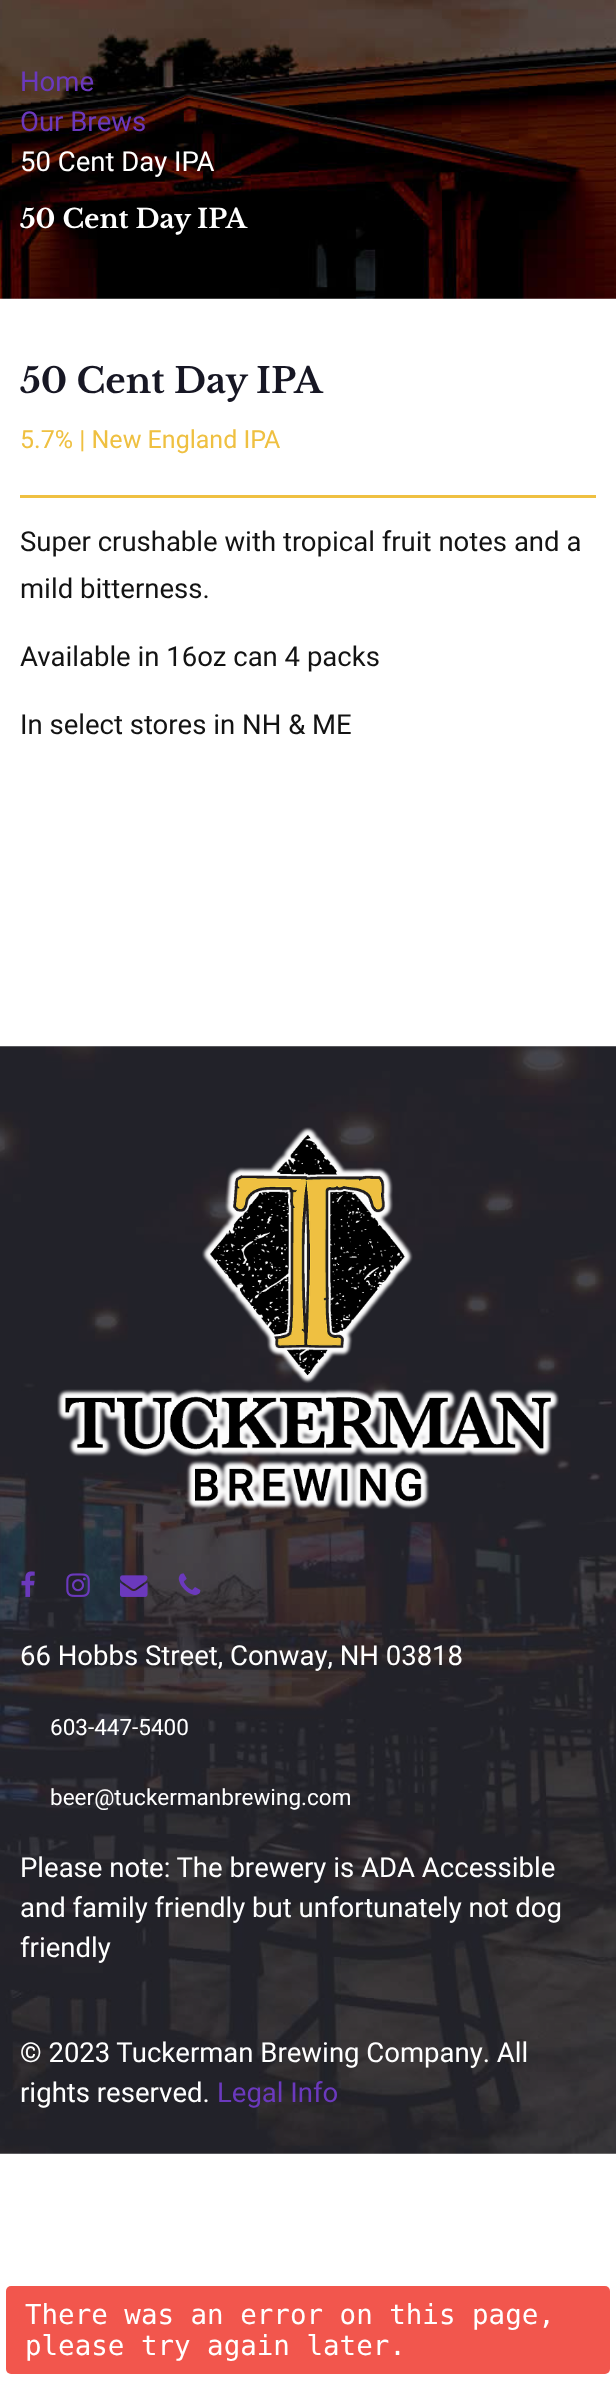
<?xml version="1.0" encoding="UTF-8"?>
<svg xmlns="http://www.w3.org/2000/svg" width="616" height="2397">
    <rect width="100%" height="100%" fill="#FFFFFF"/>
    <image x="0" y="0" width="616" height="299" href="img_01.png"/>
    <text font-family="Heebo" font-size="27.5" fill="#6B39BD">
        <tspan x="20" y="91">Home</tspan>
        <tspan x="20" y="131">Our Brews</tspan>
    </text>
    <text x="20" y="171" font-family="Heebo" font-size="27.5" fill="#FFFFFF">50 Cent Day IPA</text>
    <text x="20" y="228" font-family="Libre Baskerville" font-size="26.25" font-weight="700" fill="#FFFFFF">50 Cent Day IPA</text>
    <text x="20" y="393" font-family="Libre Baskerville" font-size="35" font-weight="700" fill="#171724">50 Cent Day IPA</text>
    <text x="20" y="448" font-family="Heebo" font-size="25" fill="#EFC041">5.7% | New England IPA</text>
    <rect x="20" y="495" width="576" height="3" fill="#EFC041"/>
    <text font-family="Heebo" font-size="27.5" fill="#131313">
        <tspan x="20" y="551">Super crushable with tropical fruit notes and a</tspan>
        <tspan x="20" y="598">mild bitterness.</tspan>
    </text>
    <text x="20" y="666" font-family="Heebo" font-size="27.5" fill="#131313">Available in 16oz can 4 packs</text>
    <text x="20" y="734" font-family="Heebo" font-size="27.5" fill="#131313">In select stores in NH &amp; ME</text>
    <image x="0" y="1046" width="616" height="1108" href="img_02.png"/>
    <image x="57" y="1127" width="502" height="383" href="img_03.png"/>
    <image x="21" y="1571" width="14" height="26" href="img_04.png"/>
    <image x="66" y="1573" width="24" height="24" href="img_05.png"/>
    <image x="120" y="1575" width="28" height="22" href="img_06.png"/>
    <image x="178" y="1573" width="23" height="22" href="img_07.png"/>
    <text x="20" y="1665" font-family="Heebo" font-size="27.5" fill="#FFFFFF">66 Hobbs Street, Conway, NH 03818</text>
    <text x="50" y="1735" font-family="Heebo" font-size="22.5" fill="#FFFFFF">603-447-5400</text>
    <text x="50" y="1805" font-family="Heebo" font-size="22.5" fill="#FFFFFF">beer@tuckermanbrewing.com</text>
    <text font-family="Heebo" font-size="27.5" fill="#FFFFFF">
        <tspan x="20" y="1877">Please note: The brewery is ADA Accessible</tspan>
        <tspan x="20" y="1917">and family friendly but unfortunately not dog</tspan>
        <tspan x="20" y="1957">friendly</tspan>
    </text>
    <text font-family="Heebo" font-size="27.5" fill="#FFFFFF">
        <tspan x="20" y="2062">© 2023 Tuckerman Brewing Company. All</tspan>
        <tspan x="20" y="2102">rights reserved.</tspan>
    </text>
    <text x="217" y="2102" font-family="Heebo" font-size="27.5" fill="#6B39BD">Legal Info</text>
    <rect x="6" y="2286" width="604" height="88" rx="5" fill="#F2564D"/>
    <text font-family="DejaVu Sans Mono" font-size="27.5" fill="#FFFFFF">
        <tspan x="25" y="2324">There was an error on this page,</tspan>
        <tspan x="25" y="2355">please try again later.</tspan>
    </text>
</svg>
